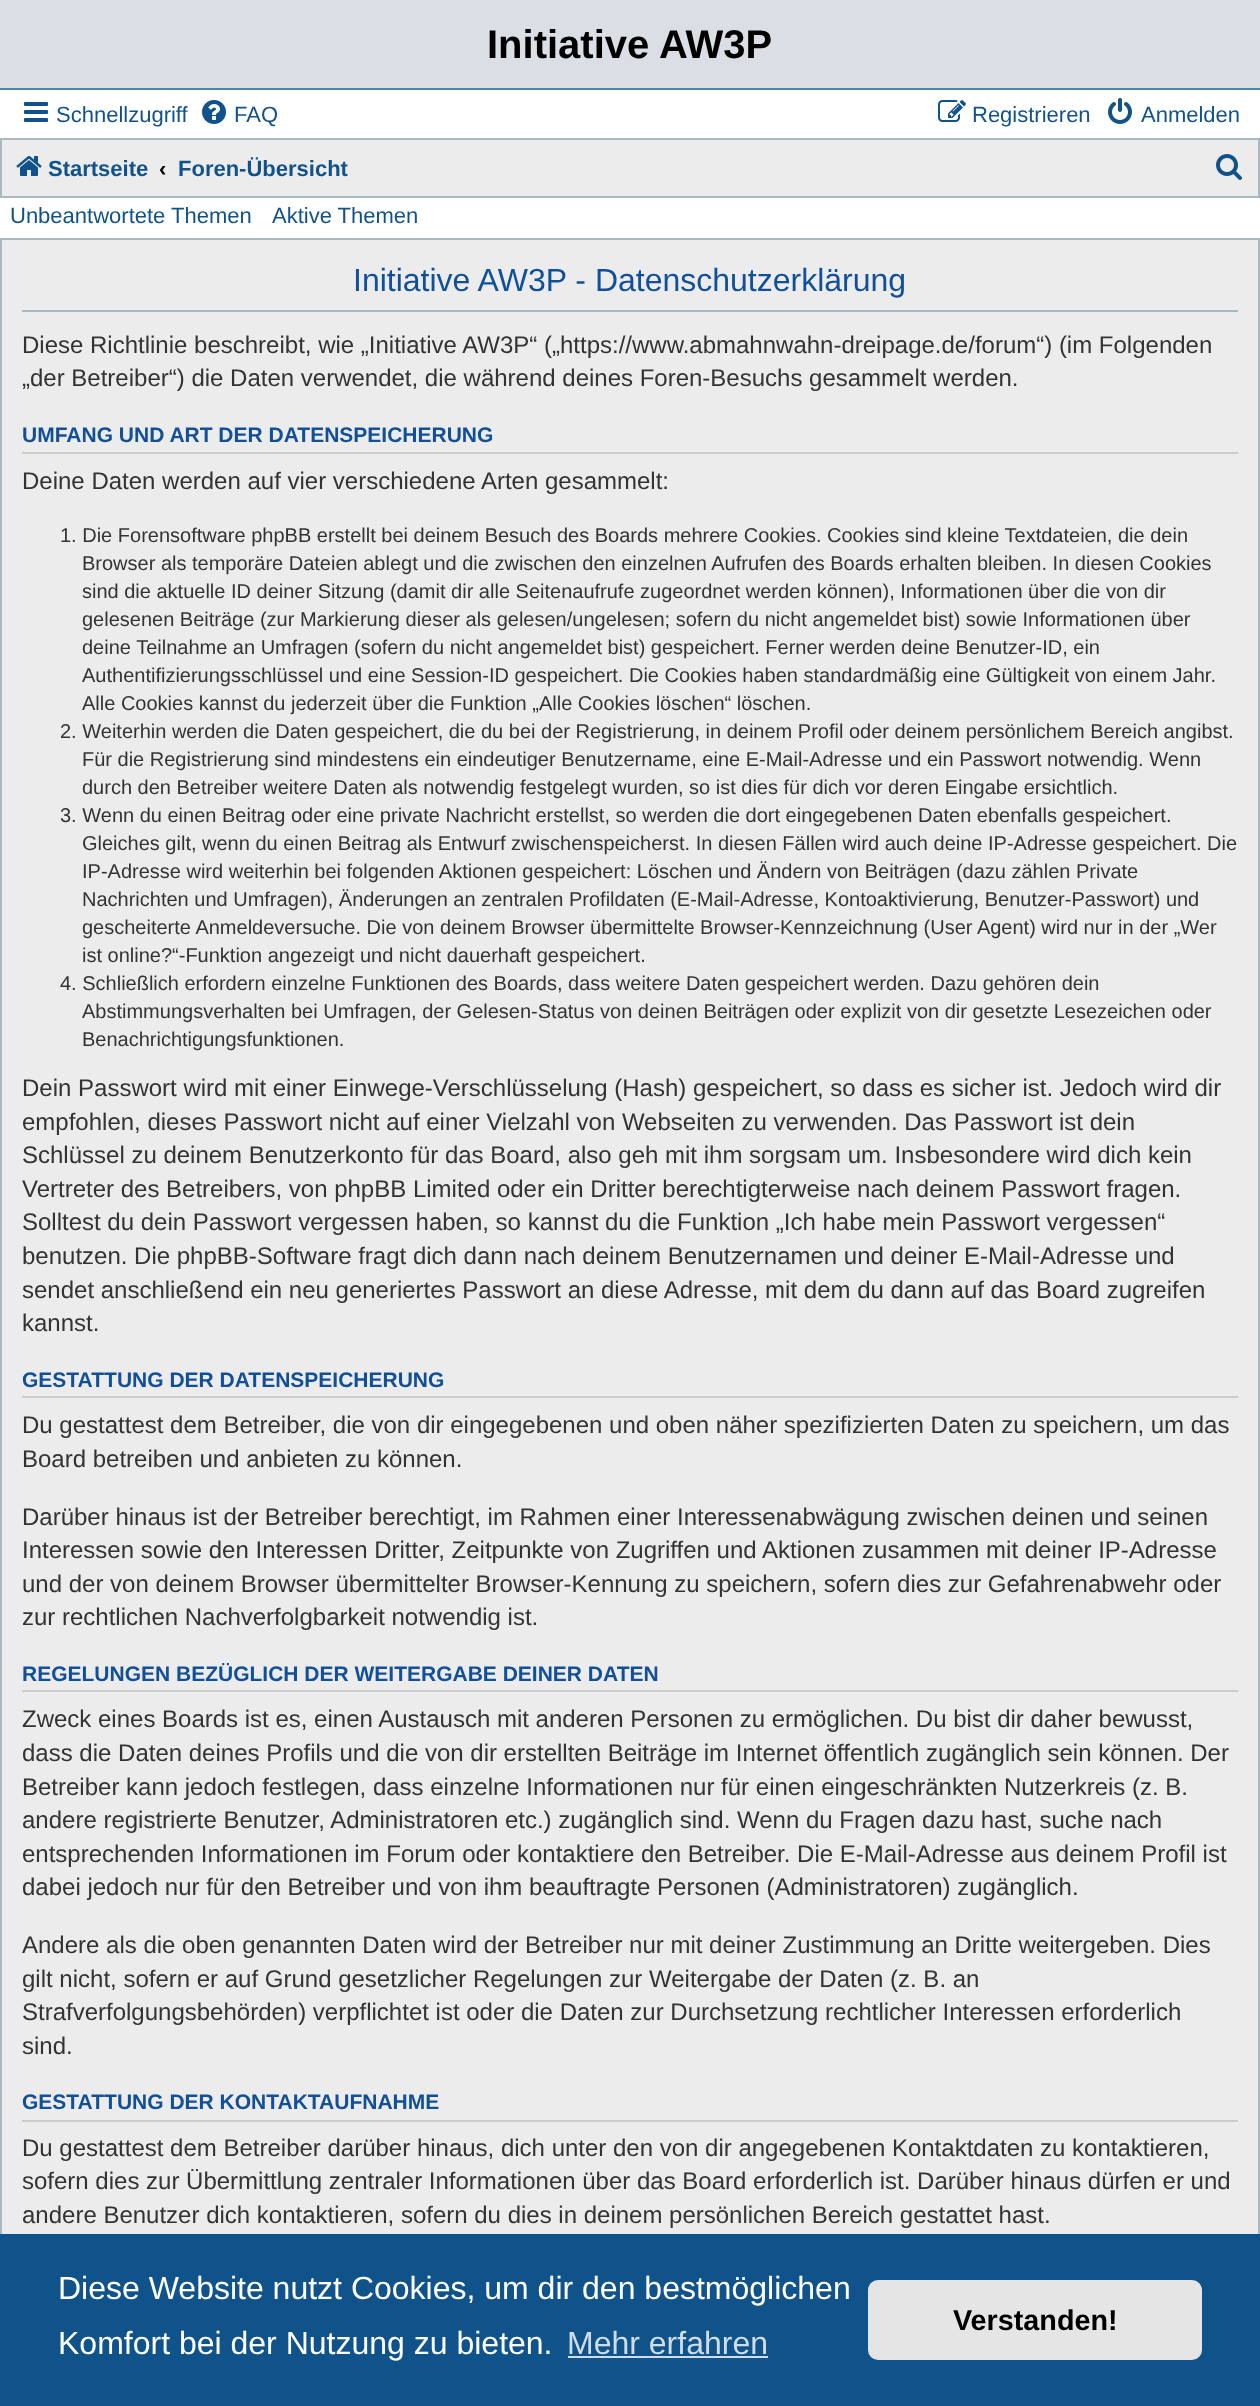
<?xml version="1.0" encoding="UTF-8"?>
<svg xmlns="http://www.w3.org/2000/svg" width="1260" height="2406">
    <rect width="100%" height="100%" fill="#FFFFFF"/>
    <rect x="0" y="0" width="1260" height="88" fill="#D9DFE4"/>
    <rect x="0" y="88" width="1260" height="2" fill="#4787A7"/>
    <text x="487" y="58" font-family="Liberation Sans" font-size="40" font-weight="700" fill="#000000">Initiative AW3P</text>
    <image x="24" y="102" width="24" height="20" href="img_01.png"/>
    <text x="56" y="122" font-family="Liberation Sans" font-size="22" fill="#105289">Schnellzugriff</text>
    <image x="202" y="100" width="24" height="24" href="img_02.png"/>
    <text x="234" y="122" font-family="Liberation Sans" font-size="22" fill="#105289">FAQ</text>
    <image x="938" y="100" width="28" height="22" href="img_03.png"/>
    <text x="972" y="122" font-family="Liberation Sans" font-size="22" fill="#105289">Registrieren</text>
    <image x="1108" y="98" width="24" height="26" href="img_04.png"/>
    <text x="1141" y="122" font-family="Liberation Sans" font-size="22" fill="#105289">Anmelden</text>
    <rect x="1" y="139" width="1258" height="58" fill="#ECECEC" stroke="#A9B8C2" stroke-width="2"/>
    <image x="16" y="156" width="26" height="20" href="img_05.png"/>
    <text x="48" y="176" font-family="Liberation Sans" font-size="22" font-weight="700" fill="#105289">Startseite</text>
    <text x="159" y="176" font-family="Liberation Sans" font-size="22" font-weight="700" fill="#000000">‹</text>
    <text x="178" y="176" font-family="Liberation Sans" font-size="22" font-weight="700" fill="#105289">Foren-Übersicht</text>
    <image x="1216" y="154" width="26" height="26" href="img_06.png"/>
    <text x="10" y="223" font-family="Liberation Sans" font-size="22" fill="#105289">Unbeantwortete Themen</text>
    <text x="272" y="223" font-family="Liberation Sans" font-size="22" fill="#105289">Aktive Themen</text>
    <rect x="2" y="240" width="1256" height="1994" fill="#ECECEC"/>
    <rect x="1" y="239" width="1258" height="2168" fill="none" stroke="#A9B8C2" stroke-width="2"/>
    <rect x="22" y="310" width="1216" height="2" fill="#A9B8C2"/>
    <text x="353" y="291" font-family="Liberation Sans" font-size="32" fill="#115098">Initiative AW3P - Datenschutzerklärung</text>
    <text font-family="Liberation Sans" font-size="24" fill="#333333">
        <tspan x="22" y="353">Diese Richtlinie beschreibt, wie „Initiative AW3P“ („https://www.abmahnwahn-dreipage.de/forum“) (im Folgenden</tspan>
        <tspan x="22" y="386">„der Betreiber“) die Daten verwendet, die während deines Foren-Besuchs gesammelt werden.</tspan>
    </text>
    <rect x="22" y="452" width="1216" height="2" fill="#CCCCCC"/>
    <text x="22" y="442" font-family="Liberation Sans" font-size="21" font-weight="700" fill="#115098">UMFANG UND ART DER DATENSPEICHERUNG</text>
    <text x="22" y="489" font-family="Liberation Sans" font-size="24" fill="#333333">Deine Daten werden auf vier verschiedene Arten gesammelt:</text>
    <text x="60" y="542" font-family="Liberation Sans" font-size="20" fill="#333333">1. Die Forensoftware phpBB erstellt bei deinem Besuch des Boards mehrere Cookies. Cookies sind kleine Textdateien, die dein</text>
    <text font-family="Liberation Sans" font-size="20" fill="#333333">
        <tspan x="82" y="570">Browser als temporäre Dateien ablegt und die zwischen den einzelnen Aufrufen des Boards erhalten bleiben. In diesen Cookies</tspan>
        <tspan x="82" y="598">sind die aktuelle ID deiner Sitzung (damit dir alle Seitenaufrufe zugeordnet werden können), Informationen über die von dir</tspan>
        <tspan x="82" y="626">gelesenen Beiträge (zur Markierung dieser als gelesen/ungelesen; sofern du nicht angemeldet bist) sowie Informationen über</tspan>
        <tspan x="82" y="654">deine Teilnahme an Umfragen (sofern du nicht angemeldet bist) gespeichert. Ferner werden deine Benutzer-ID, ein</tspan>
        <tspan x="82" y="682">Authentifizierungsschlüssel und eine Session-ID gespeichert. Die Cookies haben standardmäßig eine Gültigkeit von einem Jahr.</tspan>
        <tspan x="82" y="710">Alle Cookies kannst du jederzeit über die Funktion „Alle Cookies löschen“ löschen.</tspan>
    </text>
    <text x="60" y="738" font-family="Liberation Sans" font-size="20" fill="#333333">2. Weiterhin werden die Daten gespeichert, die du bei der Registrierung, in deinem Profil oder deinem persönlichem Bereich angibst.</text>
    <text font-family="Liberation Sans" font-size="20" fill="#333333">
        <tspan x="82" y="766">Für die Registrierung sind mindestens ein eindeutiger Benutzername, eine E-Mail-Adresse und ein Passwort notwendig. Wenn</tspan>
        <tspan x="82" y="794">durch den Betreiber weitere Daten als notwendig festgelegt wurden, so ist dies für dich vor deren Eingabe ersichtlich.</tspan>
    </text>
    <text x="60" y="822" font-family="Liberation Sans" font-size="20" fill="#333333">3. Wenn du einen Beitrag oder eine private Nachricht erstellst, so werden die dort eingegebenen Daten ebenfalls gespeichert.</text>
    <text font-family="Liberation Sans" font-size="20" fill="#333333">
        <tspan x="82" y="850">Gleiches gilt, wenn du einen Beitrag als Entwurf zwischenspeicherst. In diesen Fällen wird auch deine IP-Adresse gespeichert. Die</tspan>
        <tspan x="82" y="878">IP-Adresse wird weiterhin bei folgenden Aktionen gespeichert: Löschen und Ändern von Beiträgen (dazu zählen Private</tspan>
        <tspan x="82" y="906">Nachrichten und Umfragen), Änderungen an zentralen Profildaten (E-Mail-Adresse, Kontoaktivierung, Benutzer-Passwort) und</tspan>
        <tspan x="82" y="934">gescheiterte Anmeldeversuche. Die von deinem Browser übermittelte Browser-Kennzeichnung (User Agent) wird nur in der „Wer</tspan>
        <tspan x="82" y="962">ist online?“-Funktion angezeigt und nicht dauerhaft gespeichert.</tspan>
    </text>
    <text x="60" y="990" font-family="Liberation Sans" font-size="20" fill="#333333">4. Schließlich erfordern einzelne Funktionen des Boards, dass weitere Daten gespeichert werden. Dazu gehören dein</text>
    <text font-family="Liberation Sans" font-size="20" fill="#333333">
        <tspan x="82" y="1018">Abstimmungsverhalten bei Umfragen, der Gelesen-Status von deinen Beiträgen oder explizit von dir gesetzte Lesezeichen oder</tspan>
        <tspan x="82" y="1046">Benachrichtigungsfunktionen.</tspan>
    </text>
    <text font-family="Liberation Sans" font-size="24" fill="#333333">
        <tspan x="22" y="1096">Dein Passwort wird mit einer Einwege-Verschlüsselung (Hash) gespeichert, so dass es sicher ist. Jedoch wird dir</tspan>
        <tspan x="22" y="1130">empfohlen, dieses Passwort nicht auf einer Vielzahl von Webseiten zu verwenden. Das Passwort ist dein</tspan>
        <tspan x="22" y="1163">Schlüssel zu deinem Benutzerkonto für das Board, also geh mit ihm sorgsam um. Insbesondere wird dich kein</tspan>
        <tspan x="22" y="1197">Vertreter des Betreibers, von phpBB Limited oder ein Dritter berechtigterweise nach deinem Passwort fragen.</tspan>
        <tspan x="22" y="1230">Solltest du dein Passwort vergessen haben, so kannst du die Funktion „Ich habe mein Passwort vergessen“</tspan>
        <tspan x="22" y="1264">benutzen. Die phpBB-Software fragt dich dann nach deinem Benutzernamen und deiner E-Mail-Adresse und</tspan>
        <tspan x="22" y="1298">sendet anschließend ein neu generiertes Passwort an diese Adresse, mit dem du dann auf das Board zugreifen</tspan>
        <tspan x="22" y="1331">kannst.</tspan>
    </text>
    <rect x="22" y="1396" width="1216" height="2" fill="#CCCCCC"/>
    <text x="22" y="1387" font-family="Liberation Sans" font-size="21" font-weight="700" fill="#115098">GESTATTUNG DER DATENSPEICHERUNG</text>
    <text font-family="Liberation Sans" font-size="24" fill="#333333">
        <tspan x="22" y="1433">Du gestattest dem Betreiber, die von dir eingegebenen und oben näher spezifizierten Daten zu speichern, um das</tspan>
        <tspan x="22" y="1467">Board betreiben und anbieten zu können.</tspan>
    </text>
    <text font-family="Liberation Sans" font-size="24" fill="#333333">
        <tspan x="22" y="1525">Darüber hinaus ist der Betreiber berechtigt, im Rahmen einer Interessenabwägung zwischen deinen und seinen</tspan>
        <tspan x="22" y="1558">Interessen sowie den Interessen Dritter, Zeitpunkte von Zugriffen und Aktionen zusammen mit deiner IP-Adresse</tspan>
        <tspan x="22" y="1592">und der von deinem Browser übermittelter Browser-Kennung zu speichern, sofern dies zur Gefahrenabwehr oder</tspan>
        <tspan x="22" y="1625">zur rechtlichen Nachverfolgbarkeit notwendig ist.</tspan>
    </text>
    <rect x="22" y="1690" width="1216" height="2" fill="#CCCCCC"/>
    <text x="22" y="1681" font-family="Liberation Sans" font-size="21" font-weight="700" fill="#115098">REGELUNGEN BEZÜGLICH DER WEITERGABE DEINER DATEN</text>
    <text font-family="Liberation Sans" font-size="24" fill="#333333">
        <tspan x="22" y="1727">Zweck eines Boards ist es, einen Austausch mit anderen Personen zu ermöglichen. Du bist dir daher bewusst,</tspan>
        <tspan x="22" y="1761">dass die Daten deines Profils und die von dir erstellten Beiträge im Internet öffentlich zugänglich sein können. Der</tspan>
        <tspan x="22" y="1795">Betreiber kann jedoch festlegen, dass einzelne Informationen nur für einen eingeschränkten Nutzerkreis (z. B.</tspan>
        <tspan x="22" y="1828">andere registrierte Benutzer, Administratoren etc.) zugänglich sind. Wenn du Fragen dazu hast, suche nach</tspan>
        <tspan x="22" y="1862">entsprechenden Informationen im Forum oder kontaktiere den Betreiber. Die E-Mail-Adresse aus deinem Profil ist</tspan>
        <tspan x="22" y="1895">dabei jedoch nur für den Betreiber und von ihm beauftragte Personen (Administratoren) zugänglich.</tspan>
    </text>
    <text font-family="Liberation Sans" font-size="24" fill="#333333">
        <tspan x="22" y="1953">Andere als die oben genannten Daten wird der Betreiber nur mit deiner Zustimmung an Dritte weitergeben. Dies</tspan>
        <tspan x="22" y="1987">gilt nicht, sofern er auf Grund gesetzlicher Regelungen zur Weitergabe der Daten (z. B. an</tspan>
        <tspan x="22" y="2020">Strafverfolgungsbehörden) verpflichtet ist oder die Daten zur Durchsetzung rechtlicher Interessen erforderlich</tspan>
        <tspan x="22" y="2054">sind.</tspan>
    </text>
    <rect x="22" y="2120" width="1216" height="2" fill="#CCCCCC"/>
    <text x="22" y="2109" font-family="Liberation Sans" font-size="21" font-weight="700" fill="#115098">GESTATTUNG DER KONTAKTAUFNAHME</text>
    <text font-family="Liberation Sans" font-size="24" fill="#333333">
        <tspan x="22" y="2156">Du gestattest dem Betreiber darüber hinaus, dich unter den von dir angegebenen Kontaktdaten zu kontaktieren,</tspan>
        <tspan x="22" y="2189">sofern dies zur Übermittlung zentraler Informationen über das Board erforderlich ist. Darüber hinaus dürfen er und</tspan>
        <tspan x="22" y="2223">andere Benutzer dich kontaktieren, sofern du dies in deinem persönlichen Bereich gestattet hast.</tspan>
    </text>
    <rect x="0" y="2234" width="1260" height="172" fill="#0F538A"/>
    <text font-family="Liberation Sans" font-size="32" fill="#FFFFFF">
        <tspan x="58" y="2299">Diese Website nutzt Cookies, um dir den bestmöglichen</tspan>
        <tspan x="58" y="2354">Komfort bei der Nutzung zu bieten.</tspan>
    </text>
    <text x="567" y="2354" font-family="Liberation Sans" font-size="32" fill="#CFDDE8">Mehr erfahren</text>
    <rect x="568" y="2356" width="200" height="2" fill="#CFDDE8"/>
    <rect x="868" y="2280" width="334" height="80" rx="10" fill="#E5E5E5"/>
    <text x="953" y="2330" font-family="Liberation Sans" font-size="28.75" font-weight="700" fill="#000000">Verstanden!</text>
</svg>
